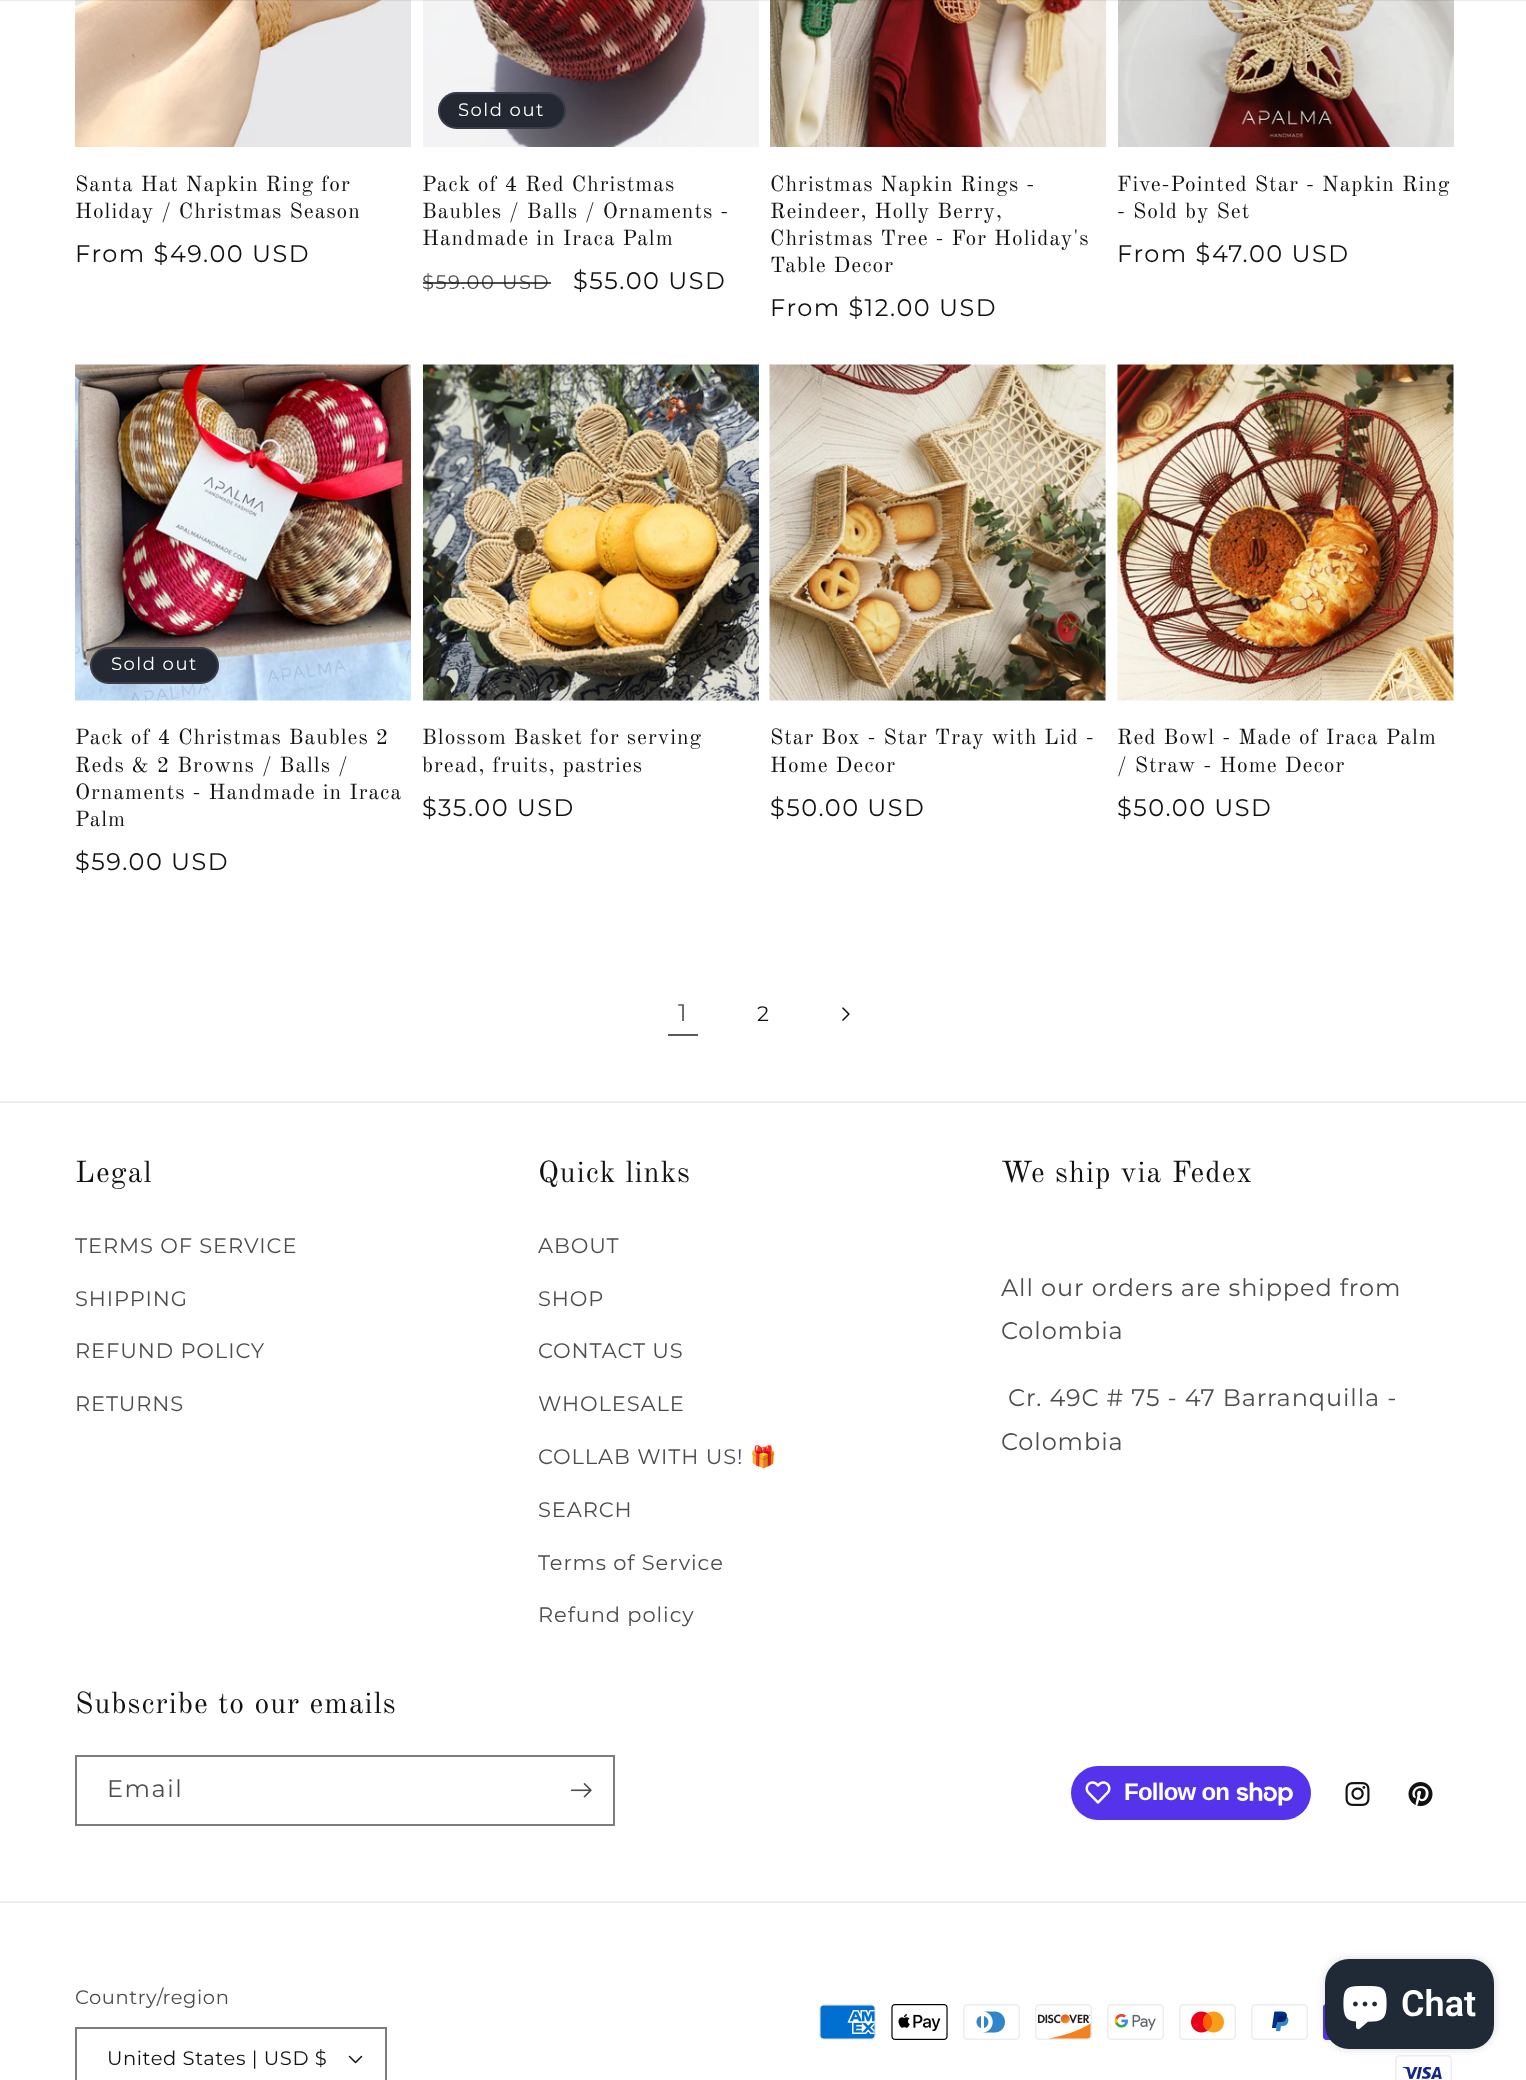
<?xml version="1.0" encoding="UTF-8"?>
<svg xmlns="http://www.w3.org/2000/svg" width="1526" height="2080">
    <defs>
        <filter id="blur1" x="-50%" y="-200%" width="200%" height="500%"><feGaussianBlur stdDeviation="4"/></filter>
    </defs>
    <rect width="100%" height="100%" fill="#FFFFFF"/>
    <image x="75" y="0" width="336" height="147" href="img_01.png"/>
    <image x="423" y="0" width="336" height="147" href="img_02.png"/>
    <image x="770" y="0" width="336" height="147" href="img_03.png"/>
    <image x="1118" y="0" width="336" height="147" href="img_04.png"/>
    <rect x="0" y="0" width="1526" height="1" fill="#121212" fill-opacity="0.08"/>
    <text font-family="Old Standard TT" font-size="21.5" letter-spacing="1" fill="#121212">
        <tspan x="75" y="191">Santa Hat Napkin Ring for</tspan>
        <tspan x="75" y="218">Holiday / Christmas Season</tspan>
    </text>
    <text x="75" y="262" font-family="Montserrat" font-size="24" letter-spacing="1.5" fill="#121212">From $49.00 USD</text>
    <rect x="438" y="92" width="128" height="37" rx="18.5" fill="#242833"/>
    <rect x="439" y="93" width="126" height="35" rx="17.5" fill="none" stroke="#FFFFFF" stroke-opacity="0.1" stroke-width="2"/>
    <text x="458" y="116" font-family="Montserrat" font-size="18" letter-spacing="1.5" fill="#FFFFFF">Sold out</text>
    <text font-family="Old Standard TT" font-size="21.5" letter-spacing="1" fill="#121212">
        <tspan x="422" y="191">Pack of 4 Red Christmas</tspan>
        <tspan x="422" y="218">Baubles / Balls / Ornaments -</tspan>
        <tspan x="422" y="245">Handmade in Iraca Palm</tspan>
    </text>
    <text x="422" y="289" font-family="Montserrat" font-size="19.5" letter-spacing="1.5" fill="#4D4D4D">$59.00 USD</text>
    <rect x="423" y="282" width="128" height="2" fill="#121212" fill-opacity="0.75"/>
    <text x="573" y="289" font-family="Montserrat" font-size="24" letter-spacing="1.5" fill="#121212">$55.00 USD</text>
    <text font-family="Old Standard TT" font-size="21.5" letter-spacing="1" fill="#121212">
        <tspan x="770" y="191">Christmas Napkin Rings -</tspan>
        <tspan x="770" y="218">Reindeer, Holly Berry,</tspan>
        <tspan x="770" y="245">Christmas Tree - For Holiday's</tspan>
        <tspan x="770" y="272">Table Decor</tspan>
    </text>
    <text x="770" y="316" font-family="Montserrat" font-size="24" letter-spacing="1.5" fill="#121212">From $12.00 USD</text>
    <text font-family="Old Standard TT" font-size="21.5" letter-spacing="1" fill="#121212">
        <tspan x="1117" y="191">Five-Pointed Star - Napkin Ring</tspan>
        <tspan x="1117" y="218">- Sold by Set</tspan>
    </text>
    <text x="1117" y="262" font-family="Montserrat" font-size="24" letter-spacing="1.5" fill="#121212">From $47.00 USD</text>
    <image x="75" y="364" width="336" height="337" href="img_05.png"/>
    <rect x="90" y="647" width="129" height="37" rx="18.5" fill="#242833"/>
    <rect x="91" y="648" width="127" height="35" rx="17.5" fill="none" stroke="#FFFFFF" stroke-opacity="0.1" stroke-width="2"/>
    <text x="111" y="670" font-family="Montserrat" font-size="18" letter-spacing="1.5" fill="#FFFFFF">Sold out</text>
    <text font-family="Old Standard TT" font-size="21.5" letter-spacing="1" fill="#121212">
        <tspan x="75" y="744">Pack of 4 Christmas Baubles 2</tspan>
        <tspan x="75" y="772">Reds &amp; 2 Browns / Balls /</tspan>
        <tspan x="75" y="799">Ornaments - Handmade in Iraca</tspan>
        <tspan x="75" y="826">Palm</tspan>
    </text>
    <text x="75" y="870" font-family="Montserrat" font-size="24" letter-spacing="1.5" fill="#121212">$59.00 USD</text>
    <image x="423" y="364" width="336" height="337" href="img_06.png"/>
    <text font-family="Old Standard TT" font-size="21.5" letter-spacing="1" fill="#121212">
        <tspan x="422" y="744">Blossom Basket for serving</tspan>
        <tspan x="422" y="772">bread, fruits, pastries</tspan>
    </text>
    <text x="422" y="816" font-family="Montserrat" font-size="24" letter-spacing="1.5" fill="#121212">$35.00 USD</text>
    <rect x="1105" y="365" width="1" height="334" fill="#F3F3F3"/>
    <image x="769" y="364" width="337" height="337" href="img_07.png"/>
    <text font-family="Old Standard TT" font-size="21.5" letter-spacing="1" fill="#121212">
        <tspan x="770" y="744">Star Box - Star Tray with Lid -</tspan>
        <tspan x="770" y="772">Home Decor</tspan>
    </text>
    <text x="770" y="816" font-family="Montserrat" font-size="24" letter-spacing="1.5" fill="#121212">$50.00 USD</text>
    <image x="1117" y="364" width="337" height="337" href="img_08.png"/>
    <text font-family="Old Standard TT" font-size="21.5" letter-spacing="1" fill="#121212">
        <tspan x="1117" y="744">Red Bowl - Made of Iraca Palm</tspan>
        <tspan x="1117" y="772">/ Straw - Home Decor</tspan>
    </text>
    <text x="1117" y="816" font-family="Montserrat" font-size="24" letter-spacing="1.5" fill="#121212">$50.00 USD</text>
    <text x="678" y="1021" font-family="Montserrat" font-size="24" letter-spacing="0.9" fill="#595959">1</text>
    <rect x="668" y="1034" width="30" height="2" fill="#595959"/>
    <text x="757" y="1021" font-family="Montserrat" font-size="21" letter-spacing="0.9" fill="#121212">2</text>
    <image x="842" y="1007" width="8" height="14" href="img_09.png"/>
    <rect x="0" y="1101" width="1526" height="2" fill="#ECECEC"/>
    <text x="75" y="1182" font-family="Old Standard TT" font-size="29.75" letter-spacing="1" fill="#121212">Legal</text>
    <text x="75" y="1253" font-family="Montserrat" font-size="21" letter-spacing="0.9" fill="#4D4D4D">TERMS OF SERVICE</text>
    <text x="75" y="1306" font-family="Montserrat" font-size="21" letter-spacing="0.9" fill="#4D4D4D">SHIPPING</text>
    <text x="75" y="1358" font-family="Montserrat" font-size="21" letter-spacing="0.9" fill="#4D4D4D">REFUND POLICY</text>
    <text x="75" y="1411" font-family="Montserrat" font-size="21" letter-spacing="0.9" fill="#4D4D4D">RETURNS</text>
    <text x="538" y="1182" font-family="Old Standard TT" font-size="29.75" letter-spacing="1" fill="#121212">Quick links</text>
    <text x="538" y="1253" font-family="Montserrat" font-size="21" letter-spacing="0.9" fill="#4D4D4D">ABOUT</text>
    <text x="538" y="1306" font-family="Montserrat" font-size="21" letter-spacing="0.9" fill="#4D4D4D">SHOP</text>
    <text x="538" y="1358" font-family="Montserrat" font-size="21" letter-spacing="0.9" fill="#4D4D4D">CONTACT US</text>
    <text x="538" y="1411" font-family="Montserrat" font-size="21" letter-spacing="0.9" fill="#4D4D4D">WHOLESALE</text>
    <text x="538" y="1464" font-family="Montserrat" font-size="21" letter-spacing="0.9" fill="#4D4D4D">COLLAB WITH US!</text>
    <text x="750" y="1464" font-family="Noto Color Emoji" font-size="21" letter-spacing="0.9" fill="#4D4D4D">🎁</text>
    <text x="538" y="1517" font-family="Montserrat" font-size="21" letter-spacing="0.9" fill="#4D4D4D">SEARCH</text>
    <text x="538" y="1570" font-family="Montserrat" font-size="21" letter-spacing="0.9" fill="#4D4D4D">Terms of Service</text>
    <text x="538" y="1622" font-family="Montserrat" font-size="21" letter-spacing="0.9" fill="#4D4D4D">Refund policy</text>
    <text x="1001" y="1182" font-family="Old Standard TT" font-size="29.75" letter-spacing="1" fill="#121212">We ship via Fedex</text>
    <text font-family="Montserrat" font-size="24" letter-spacing="0.9" fill="#4D4D4D">
        <tspan x="1001" y="1296">All our orders are shipped from</tspan>
        <tspan x="1001" y="1339">Colombia</tspan>
    </text>
    <text x="1008" y="1406" font-family="Montserrat" font-size="24" letter-spacing="0.9" fill="#4D4D4D">Cr. 49C # 75 - 47 Barranquilla -</text>
    <text x="1001" y="1450" font-family="Montserrat" font-size="24" letter-spacing="0.9" fill="#4D4D4D">Colombia</text>
    <text x="75" y="1713" font-family="Old Standard TT" font-size="29.75" letter-spacing="1" fill="#121212">Subscribe to our emails</text>
    <rect x="76" y="1756" width="538" height="69" fill="none" stroke="#7D7D7D" stroke-width="2"/>
    <text x="107" y="1797" font-family="Montserrat" font-size="24" letter-spacing="1.5" fill="#4D4D4D">Email</text>
    <image x="570" y="1783" width="22" height="15" href="img_10.png"/>
    <rect x="1071" y="1766" width="240" height="54" rx="27" fill="#5433EB"/>
    <image x="1085" y="1781" width="26" height="23" href="img_11.png"/>
    <text x="1124" y="1800" font-family="Liberation Sans" font-size="24" font-weight="700" letter-spacing="-0.75" fill="#FFFFFF">Follow on</text>
    <image x="1236" y="1782" width="57" height="24" href="img_12.png"/>
    <image x="1345" y="1782" width="25" height="24" href="img_13.png"/>
    <image x="1408" y="1782" width="25" height="25" href="img_14.png"/>
    <rect x="0" y="1901" width="1526" height="2" fill="#ECECEC"/>
    <text x="75" y="2004" font-family="Montserrat" font-size="19.5" letter-spacing="0.6" fill="#4D4D4D">Country/region</text>
    <image x="348" y="2055" width="15" height="9" href="img_15.png"/>
    <rect x="76" y="2028" width="310" height="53" fill="none" stroke="#7D7D7D" stroke-width="2"/>
    <text x="107" y="2065" font-family="Montserrat" font-size="19.5" letter-spacing="0.6" fill="#121212">United States | USD $</text>
    <image x="819" y="2004" width="57" height="36" href="img_16.png"/>
    <image x="891" y="2004" width="57" height="36" href="img_17.png"/>
    <image x="963" y="2004" width="57" height="36" href="img_18.png"/>
    <image x="1035" y="2004" width="57" height="36" href="img_19.png"/>
    <image x="1107" y="2004" width="57" height="36" href="img_20.png"/>
    <image x="1179" y="2004" width="57" height="36" href="img_21.png"/>
    <image x="1251" y="2004" width="57" height="36" href="img_22.png"/>
    <image x="1323" y="2004" width="8" height="36" href="img_23.png"/>
    <image x="1395" y="2055" width="57" height="25" href="img_24.png"/>
    <rect x="1325" y="1959" width="169" height="90" rx="24" fill="#000000" fill-opacity="0.15" filter="url(#blur1)"/>
    <rect x="1325" y="1959" width="169" height="90" rx="24" fill="#202A36"/>
    <image x="1343" y="1986" width="44" height="44" href="img_25.png"/>
    <text x="1401" y="2016" font-family="Roboto" font-size="36" font-weight="600" fill="#FFFFFF">Chat</text>
</svg>
